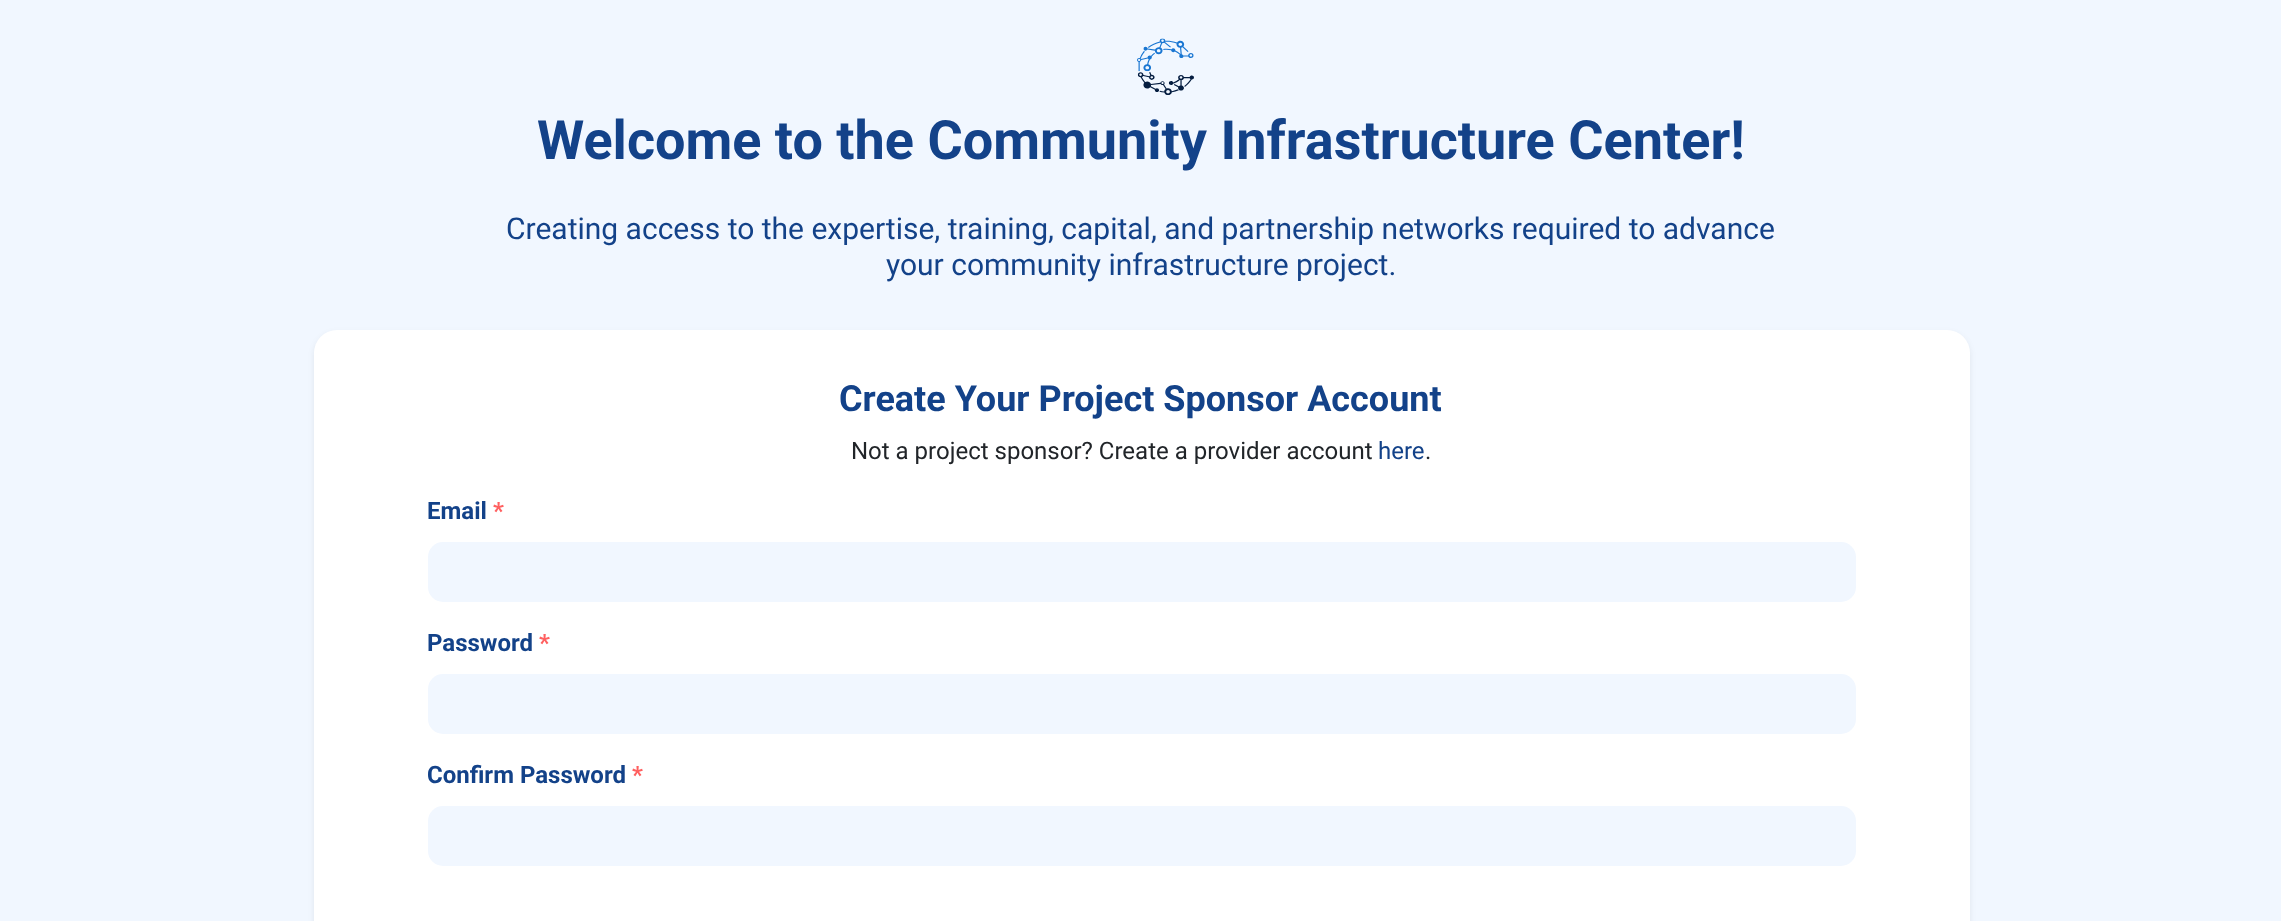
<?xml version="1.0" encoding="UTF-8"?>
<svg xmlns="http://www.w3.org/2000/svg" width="2281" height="921">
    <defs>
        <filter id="blur1" x="-50%" y="-200%" width="200%" height="500%"><feGaussianBlur stdDeviation="3"/></filter>
    </defs>
    <rect width="100%" height="100%" fill="#F1F7FF"/>
    <image x="1137" y="38" width="57" height="57" href="img_01.png"/>
    <text x="537" y="159" font-family="Roboto" font-size="54" font-weight="700" fill="#134289">Welcome to the Community Infrastructure Center!</text>
    <text x="506" y="239" font-family="Roboto" font-size="30" fill="#134289">Creating access to the expertise, training, capital, and partnership networks required to advance</text>
    <text x="886" y="275" font-family="Roboto" font-size="30" fill="#134289">your community infrastructure project.</text>
    <rect x="314" y="333" width="1656" height="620" rx="23" fill="#000000" fill-opacity="0.07" filter="url(#blur1)"/>
    <rect x="314" y="330" width="1656" height="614" rx="23" fill="#FFFFFF"/>
    <text x="839" y="411" font-family="Roboto" font-size="36" font-weight="700" fill="#134289">Create Your Project Sponsor Account</text>
    <text x="851" y="459" font-family="Roboto" font-size="24" fill="#212529">Not a project sponsor? Create a provider account</text>
    <text x="1378" y="459" font-family="Roboto" font-size="24" fill="#134289">here</text>
    <text x="1425" y="459" font-family="Roboto" font-size="24" fill="#212529">.</text>
    <text x="427" y="519" font-family="Roboto" font-size="24" font-weight="700" fill="#134289">Email</text>
    <text x="493" y="519" font-family="Roboto" font-size="24" font-weight="700" fill="#FF6060">*</text>
    <rect x="428" y="542" width="1428" height="60" rx="15" fill="#F1F7FF"/>
    <text x="427" y="651" font-family="Roboto" font-size="24" font-weight="700" fill="#134289">Password</text>
    <text x="539" y="651" font-family="Roboto" font-size="24" font-weight="700" fill="#FF6060">*</text>
    <rect x="428" y="674" width="1428" height="60" rx="15" fill="#F1F7FF"/>
    <text x="427" y="783" font-family="Roboto" font-size="24" font-weight="700" fill="#134289">Confirm Password</text>
    <text x="632" y="783" font-family="Roboto" font-size="24" font-weight="700" fill="#FF6060">*</text>
    <rect x="428" y="806" width="1428" height="60" rx="15" fill="#F1F7FF"/>
</svg>
